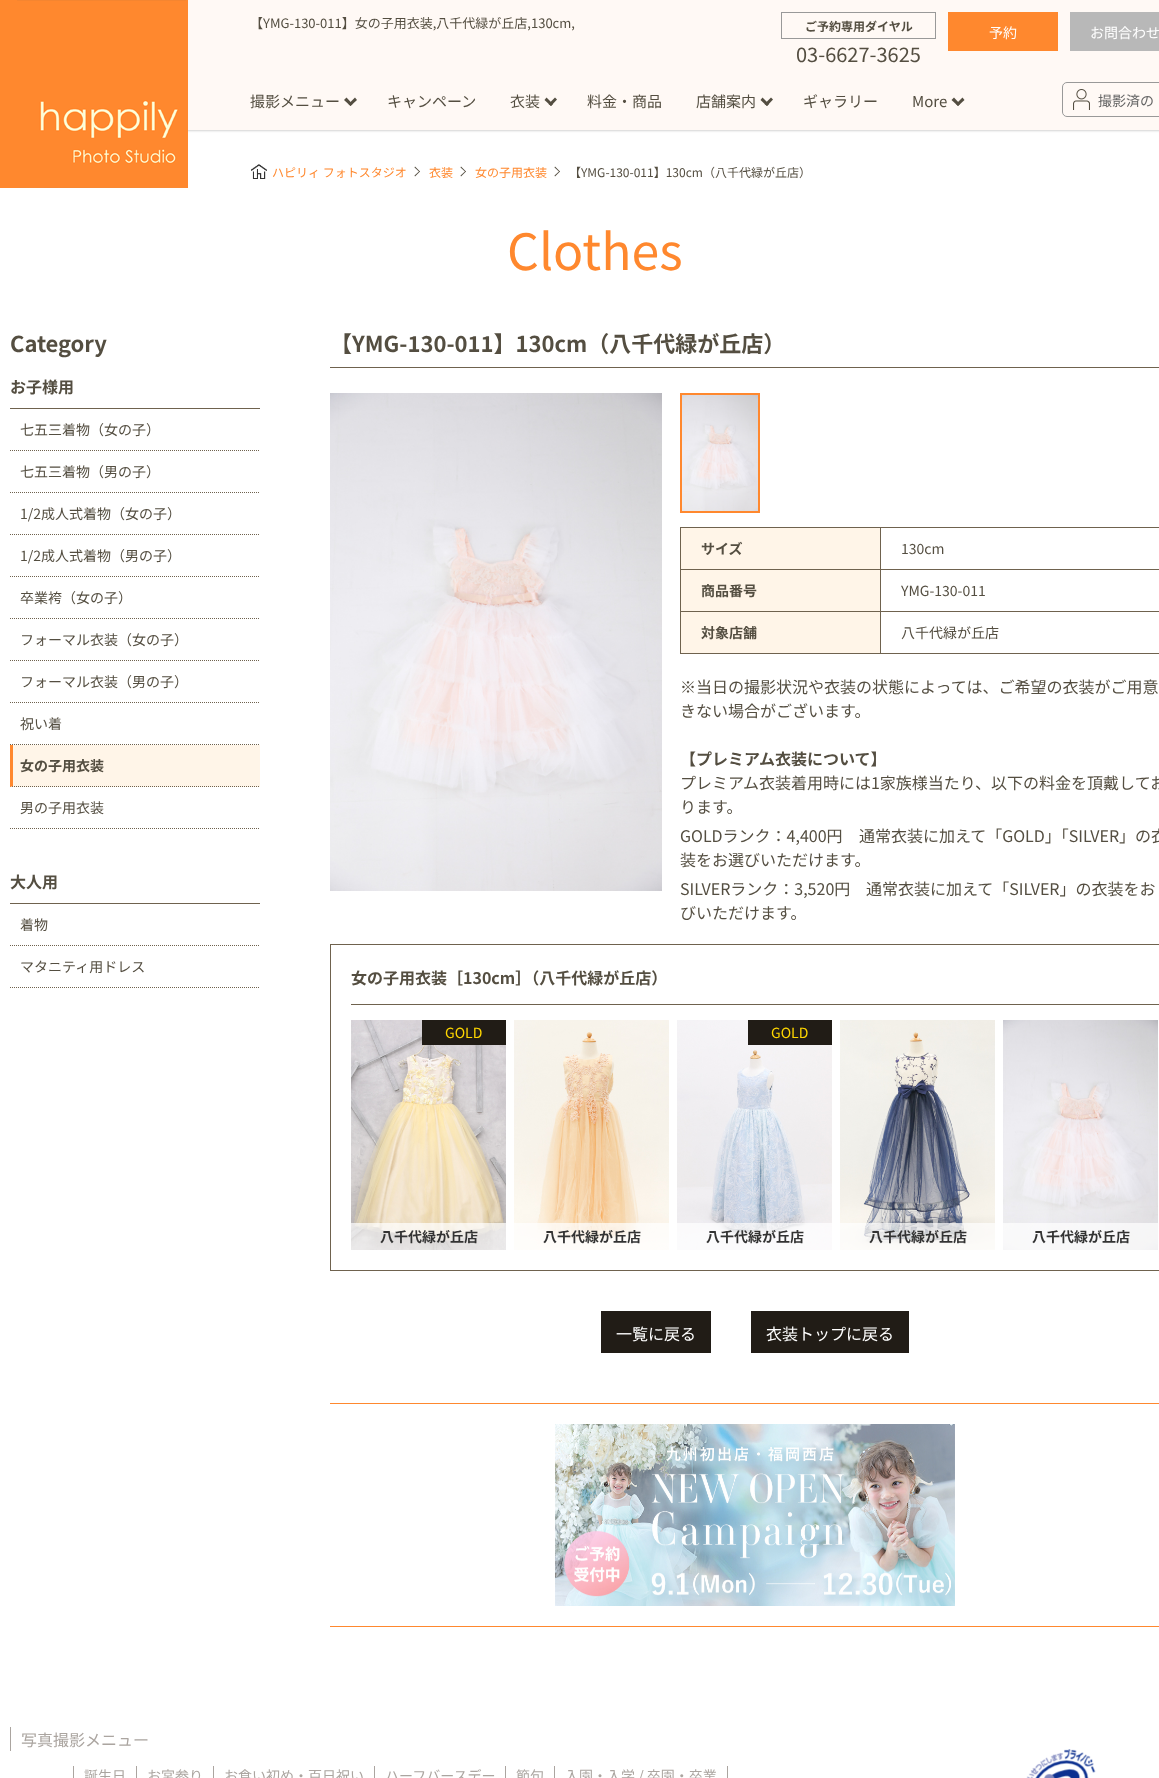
<?xml version="1.0" encoding="UTF-8"?>
<svg xmlns="http://www.w3.org/2000/svg" width="1159" height="1778">
    <defs>
        <filter id="blur1" x="-50%" y="-200%" width="200%" height="500%"><feGaussianBlur stdDeviation="1.5"/></filter>
    </defs>
    <rect width="100%" height="100%" fill="#FFFFFF"/>
    <rect x="0" y="0" width="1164" height="130" fill="#AAAAAA" filter="url(#blur1)"/>
    <rect x="188" y="0" width="971" height="130" fill="#FFF9F5"/>
    <image x="0" y="0" width="188" height="188" href="img_01.png"/>
    <text x="250" y="28" font-family="Noto Sans JP" font-size="13" fill="#544E41">【YMG-130-011】女の子用衣装,八千代緑が丘店,130cm,</text>
    <rect x="781.5" y="12.5" width="154" height="26" fill="none" stroke="#999999"/>
    <text x="805" y="31" font-family="Noto Sans JP" font-size="12" font-weight="700" fill="#544E41">ご予約専用ダイヤル</text>
    <text x="796" y="62" font-family="Noto Sans JP" font-size="20" fill="#544E41">03-6627-3625</text>
    <rect x="948" y="12" width="110" height="39" fill="#FF882E"/>
    <text x="989" y="38" font-family="Noto Sans JP" font-size="14" fill="#FFFFFF">予約</text>
    <rect x="1070" y="12" width="89" height="39" fill="#B8B8B8"/>
    <text x="1090" y="38" font-family="Noto Sans JP" font-size="14" fill="#FFFFFF">お問合わせ</text>
    <text x="250" y="107" font-family="Noto Sans JP" font-size="15" fill="#544E41">撮影メニュー</text>
    <path d="M 357 100 L 350.5 106 L 348.5 104 L 355 97.5 Z" fill="#544E41"/>
    <path d="M 352.5 104 L 350.5 106 L 344 100 L 346.5 97.5 Z" fill="#544E41"/>
    <text x="387" y="107" font-family="Noto Sans JP" font-size="15" fill="#544E41">キャンペーン</text>
    <text x="510" y="107" font-family="Noto Sans JP" font-size="15" fill="#544E41">衣装</text>
    <path d="M 557 99.5 L 551 106 L 548.5 104 L 555 97.5 Z" fill="#544E41"/>
    <path d="M 553 104 L 551 106 L 544.5 100 L 546.5 97.5 Z" fill="#544E41"/>
    <text x="587" y="107" font-family="Noto Sans JP" font-size="15" fill="#544E41">料金・商品</text>
    <text x="696" y="107" font-family="Noto Sans JP" font-size="15" fill="#544E41">店舗案内</text>
    <path d="M 773 99.5 L 767 106 L 764.5 104 L 771 97.5 Z" fill="#544E41"/>
    <path d="M 769 104 L 767 106 L 760.5 100 L 762.5 97.5 Z" fill="#544E41"/>
    <text x="803" y="107" font-family="Noto Sans JP" font-size="15" fill="#544E41">ギャラリー</text>
    <text x="912" y="107" font-family="Noto Sans JP" font-size="15" fill="#544E41">More</text>
    <path d="M 964.5 100 L 958 106 L 956 104 L 962.5 97.5 Z" fill="#544E41"/>
    <path d="M 960 104 L 958 106 L 951.5 100 L 954 97.5 Z" fill="#544E41"/>
    <image x="1073" y="89" width="17" height="21" href="img_02.png"/>
    <rect x="1062.5" y="82.5" width="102" height="34" rx="4.5" fill="none" stroke="#999999"/>
    <text x="1098" y="106" font-family="Noto Sans JP" font-size="14" fill="#666666">撮影済の</text>
    <image x="251" y="164" width="16" height="15" href="img_03.png"/>
    <text x="272" y="177" font-family="Noto Sans JP" font-size="12" fill="#FF882E">ハピリィ フォトスタジオ</text>
    <path d="M 415 166.5 L 420 171.5 L 419.5 172 L 414.5 167.5 Z" fill="#544E41"/>
    <path d="M 419.5 171 L 420 171.5 L 415 176.5 L 414.5 175.5 Z" fill="#544E41"/>
    <text x="429" y="177" font-family="Noto Sans JP" font-size="12" fill="#FF882E">衣装</text>
    <path d="M 461 166.5 L 466 171.5 L 465.5 172 L 460.5 167.5 Z" fill="#544E41"/>
    <path d="M 465.5 171 L 466 171.5 L 461 176.5 L 460.5 175.5 Z" fill="#544E41"/>
    <text x="475" y="177" font-family="Noto Sans JP" font-size="12" fill="#FF882E">女の子用衣装</text>
    <path d="M 555 166.5 L 560 171.5 L 559.5 172 L 554.5 167.5 Z" fill="#544E41"/>
    <path d="M 559.5 171 L 560 171.5 L 555 176.5 L 554.5 175.5 Z" fill="#544E41"/>
    <text x="569" y="177" font-family="Noto Sans JP" font-size="12" fill="#544E41">【YMG-130-011】130cm（八千代緑が丘店）</text>
    <text x="507" y="270" font-family="Noto Sans JP" font-size="50" fill="#FF882E">Clothes</text>
    <text x="10" y="352" font-family="Noto Sans JP" font-size="22" font-weight="700" fill="#544E41">Category</text>
    <rect x="10" y="408" width="250" height="1" fill="#6F624E"/>
    <text x="10" y="393" font-family="Noto Sans JP" font-size="16" font-weight="700" fill="#544E41">お子様用</text>
    <path d="M 10 450.5 H 260" fill="none" stroke="#6F624E" stroke-dasharray="1 1"/>
    <text x="20" y="435" font-family="Noto Sans JP" font-size="14" fill="#544E41">七五三着物（女の子）</text>
    <path d="M 10 492.5 H 260" fill="none" stroke="#6F624E" stroke-dasharray="1 1"/>
    <text x="20" y="477" font-family="Noto Sans JP" font-size="14" fill="#544E41">七五三着物（男の子）</text>
    <path d="M 10 534.5 H 260" fill="none" stroke="#6F624E" stroke-dasharray="1 1"/>
    <text x="20" y="519" font-family="Noto Sans JP" font-size="14" fill="#544E41">1/2成人式着物（女の子）</text>
    <path d="M 10 576.5 H 260" fill="none" stroke="#6F624E" stroke-dasharray="1 1"/>
    <text x="20" y="561" font-family="Noto Sans JP" font-size="14" fill="#544E41">1/2成人式着物（男の子）</text>
    <path d="M 10 618.5 H 260" fill="none" stroke="#6F624E" stroke-dasharray="1 1"/>
    <text x="20" y="603" font-family="Noto Sans JP" font-size="14" fill="#544E41">卒業袴（女の子）</text>
    <path d="M 10 660.5 H 260" fill="none" stroke="#6F624E" stroke-dasharray="1 1"/>
    <text x="20" y="645" font-family="Noto Sans JP" font-size="14" fill="#544E41">フォーマル衣装（女の子）</text>
    <path d="M 10 702.5 H 260" fill="none" stroke="#6F624E" stroke-dasharray="1 1"/>
    <text x="20" y="687" font-family="Noto Sans JP" font-size="14" fill="#544E41">フォーマル衣装（男の子）</text>
    <path d="M 10 744.5 H 260" fill="none" stroke="#6F624E" stroke-dasharray="1 1"/>
    <text x="20" y="729" font-family="Noto Sans JP" font-size="14" fill="#544E41">祝い着</text>
    <rect x="11" y="745" width="249" height="42" fill="#FFF5E8"/>
    <path d="M 10 786.5 H 260" fill="none" stroke="#6F624E" stroke-dasharray="1 1"/>
    <path d="M 10 787 V 745 H 13 V 786 Z" fill="#FF882E"/>
    <text x="20" y="771" font-family="Noto Sans JP" font-size="14" font-weight="700" fill="#544E41">女の子用衣装</text>
    <path d="M 10 828.5 H 260" fill="none" stroke="#6F624E" stroke-dasharray="1 1"/>
    <text x="20" y="813" font-family="Noto Sans JP" font-size="14" fill="#544E41">男の子用衣装</text>
    <rect x="10" y="903" width="250" height="1" fill="#6F624E"/>
    <text x="10" y="888" font-family="Noto Sans JP" font-size="16" font-weight="700" fill="#544E41">大人用</text>
    <path d="M 10 945.5 H 260" fill="none" stroke="#6F624E" stroke-dasharray="1 1"/>
    <text x="20" y="930" font-family="Noto Sans JP" font-size="14" fill="#544E41">着物</text>
    <path d="M 10 987.5 H 260" fill="none" stroke="#6F624E" stroke-dasharray="1 1"/>
    <text x="20" y="972" font-family="Noto Sans JP" font-size="14" fill="#544E41">マタニティ用ドレス</text>
    <rect x="330" y="367" width="829" height="1" fill="#6F624E"/>
    <text x="330" y="352" font-family="Noto Sans JP" font-size="22" font-weight="700" fill="#544E41">【YMG-130-011】130cm（八千代緑が丘店）</text>
    <image x="330" y="393" width="332" height="498" href="img_04.png"/>
    <image x="682" y="395" width="76" height="116" href="img_05.png"/>
    <rect x="681" y="394" width="78" height="118" fill="none" stroke="#FF882E" stroke-width="2"/>
    <rect x="680" y="527" width="479" height="1" fill="#6F624E"/>
    <rect x="680" y="527" width="1" height="127" fill="#6F624E"/>
    <rect x="681" y="528" width="199" height="41" fill="#FFF5E8"/>
    <rect x="880" y="653" width="279" height="1" fill="#6F624E"/>
    <rect x="880" y="611" width="1" height="43" fill="#6F624E"/>
    <rect x="880" y="611" width="279" height="1" fill="#6F624E"/>
    <rect x="880" y="569" width="1" height="43" fill="#6F624E"/>
    <rect x="880" y="569" width="279" height="1" fill="#6F624E"/>
    <rect x="880" y="527" width="1" height="43" fill="#6F624E"/>
    <rect x="680" y="569" width="201" height="1" fill="#6F624E"/>
    <text x="701" y="554" font-family="Noto Sans JP" font-size="14" font-weight="700" fill="#544E41">サイズ</text>
    <text x="901" y="554" font-family="Noto Sans JP" font-size="14" fill="#544E41">130cm</text>
    <rect x="681" y="570" width="199" height="41" fill="#FFF5E8"/>
    <rect x="680" y="611" width="201" height="1" fill="#6F624E"/>
    <text x="701" y="596" font-family="Noto Sans JP" font-size="14" font-weight="700" fill="#544E41">商品番号</text>
    <text x="901" y="596" font-family="Noto Sans JP" font-size="14" fill="#544E41">YMG-130-011</text>
    <rect x="681" y="612" width="199" height="41" fill="#FFF5E8"/>
    <rect x="680" y="653" width="201" height="1" fill="#6F624E"/>
    <text x="701" y="638" font-family="Noto Sans JP" font-size="14" font-weight="700" fill="#544E41">対象店舗</text>
    <text x="901" y="638" font-family="Noto Sans JP" font-size="14" fill="#544E41">八千代緑が丘店</text>
    <text font-family="Noto Sans JP" font-size="16" fill="#544E41">
        <tspan x="680" y="693">※当日の撮影状況や衣装の状態によっては、ご希望の衣装がご用意</tspan>
        <tspan x="680" y="717">きない場合がございます。</tspan>
    </text>
    <text x="680" y="765" font-family="Noto Sans JP" font-size="16" font-weight="700" fill="#544E41">【プレミアム衣装について】</text>
    <text font-family="Noto Sans JP" font-size="16" fill="#544E41">
        <tspan x="680" y="789">プレミアム衣装着用時には1家族様当たり、以下の料金を頂戴してお</tspan>
        <tspan x="680" y="813">ります。</tspan>
        <tspan x="680" y="842">GOLDランク：4,400円</tspan>
    </text>
    <text x="859" y="842" font-family="Noto Sans JP" font-size="16" fill="#544E41">通常衣装に加えて「GOLD」「SILVER」の衣</text>
    <text font-family="Noto Sans JP" font-size="16" fill="#544E41">
        <tspan x="680" y="866">装をお選びいただけます。</tspan>
        <tspan x="680" y="895">SILVERランク：3,520円</tspan>
    </text>
    <text x="866" y="895" font-family="Noto Sans JP" font-size="16" fill="#544E41">通常衣装に加えて「SILVER」の衣装をお</text>
    <text x="680" y="919" font-family="Noto Sans JP" font-size="16" fill="#544E41">びいただけます。</text>
    <rect x="330.5" y="944.5" width="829" height="326" fill="none" stroke="#6F624E"/>
    <rect x="351" y="1004" width="808" height="1" fill="#6F624E"/>
    <text x="351" y="984" font-family="Noto Sans JP" font-size="16" font-weight="700" fill="#544E41">女の子用衣装［130cm］（八千代緑が丘店）</text>
    <image x="351" y="1020" width="155" height="230" href="img_06.png"/>
    <rect x="422" y="1020" width="84" height="25" fill="#211C16"/>
    <text x="445" y="1038" font-family="Noto Sans JP" font-size="14" fill="#FFD700">GOLD</text>
    <rect x="351" y="1223" width="155" height="27" fill="#FFFFFF" fill-opacity="0.7"/>
    <text x="380" y="1242" font-family="Noto Sans JP" font-size="14" font-weight="700" fill="#333333">八千代緑が丘店</text>
    <image x="514" y="1020" width="155" height="230" href="img_07.png"/>
    <rect x="514" y="1223" width="155" height="27" fill="#FFFFFF" fill-opacity="0.7"/>
    <text x="543" y="1242" font-family="Noto Sans JP" font-size="14" font-weight="700" fill="#333333">八千代緑が丘店</text>
    <image x="677" y="1020" width="155" height="230" href="img_08.png"/>
    <rect x="748" y="1020" width="84" height="25" fill="#211C16"/>
    <text x="771" y="1038" font-family="Noto Sans JP" font-size="14" fill="#FFD700">GOLD</text>
    <rect x="677" y="1223" width="155" height="27" fill="#FFFFFF" fill-opacity="0.7"/>
    <text x="706" y="1242" font-family="Noto Sans JP" font-size="14" font-weight="700" fill="#333333">八千代緑が丘店</text>
    <image x="840" y="1020" width="155" height="230" href="img_09.png"/>
    <rect x="840" y="1223" width="155" height="27" fill="#FFFFFF" fill-opacity="0.7"/>
    <text x="869" y="1242" font-family="Noto Sans JP" font-size="14" font-weight="700" fill="#333333">八千代緑が丘店</text>
    <image x="1003" y="1020" width="155" height="230" href="img_10.png"/>
    <rect x="1003" y="1223" width="155" height="27" fill="#FFFFFF" fill-opacity="0.7"/>
    <text x="1032" y="1242" font-family="Noto Sans JP" font-size="14" font-weight="700" fill="#333333">八千代緑が丘店</text>
    <rect x="601" y="1311" width="110" height="42" fill="#211C16"/>
    <text x="616" y="1340" font-family="Noto Sans JP" font-size="16" fill="#FFFFFF">一覧に戻る</text>
    <rect x="751" y="1311" width="158" height="42" fill="#211C16"/>
    <text x="766" y="1340" font-family="Noto Sans JP" font-size="16" fill="#FFFFFF">衣装トップに戻る</text>
    <rect x="330" y="1403" width="829" height="1" fill="#FF882E"/>
    <rect x="330" y="1626" width="829" height="1" fill="#FF882E"/>
    <image x="555" y="1424" width="400" height="182" href="img_11.png"/>
    <rect x="10" y="1727" width="1" height="24" fill="#ABA5A0"/>
    <text x="21" y="1746" font-family="Noto Sans JP" font-size="16" fill="#ABA5A0">写真撮影メニュー</text>
    <rect x="73" y="1766" width="1" height="12" fill="#ABA5A0"/>
    <rect x="136" y="1766" width="1" height="12" fill="#ABA5A0"/>
    <text x="84" y="1781" font-family="Noto Sans JP" font-size="14" fill="#ABA5A0">誕生日</text>
    <rect x="213" y="1766" width="1" height="12" fill="#ABA5A0"/>
    <text x="147" y="1781" font-family="Noto Sans JP" font-size="14" fill="#ABA5A0">お宮参り</text>
    <rect x="374" y="1766" width="1" height="12" fill="#ABA5A0"/>
    <text x="224" y="1781" font-family="Noto Sans JP" font-size="14" fill="#ABA5A0">お食い初め・百日祝い</text>
    <rect x="505" y="1766" width="1" height="12" fill="#ABA5A0"/>
    <text x="385" y="1781" font-family="Noto Sans JP" font-size="14" fill="#ABA5A0">ハーフバースデー</text>
    <rect x="554" y="1766" width="1" height="12" fill="#ABA5A0"/>
    <text x="516" y="1781" font-family="Noto Sans JP" font-size="14" fill="#ABA5A0">節句</text>
    <rect x="727" y="1766" width="1" height="12" fill="#ABA5A0"/>
    <text x="565" y="1781" font-family="Noto Sans JP" font-size="14" fill="#ABA5A0">入園・入学 / 卒園・卒業</text>
    <image x="1026" y="1749" width="70" height="29" href="img_12.png"/>
</svg>
